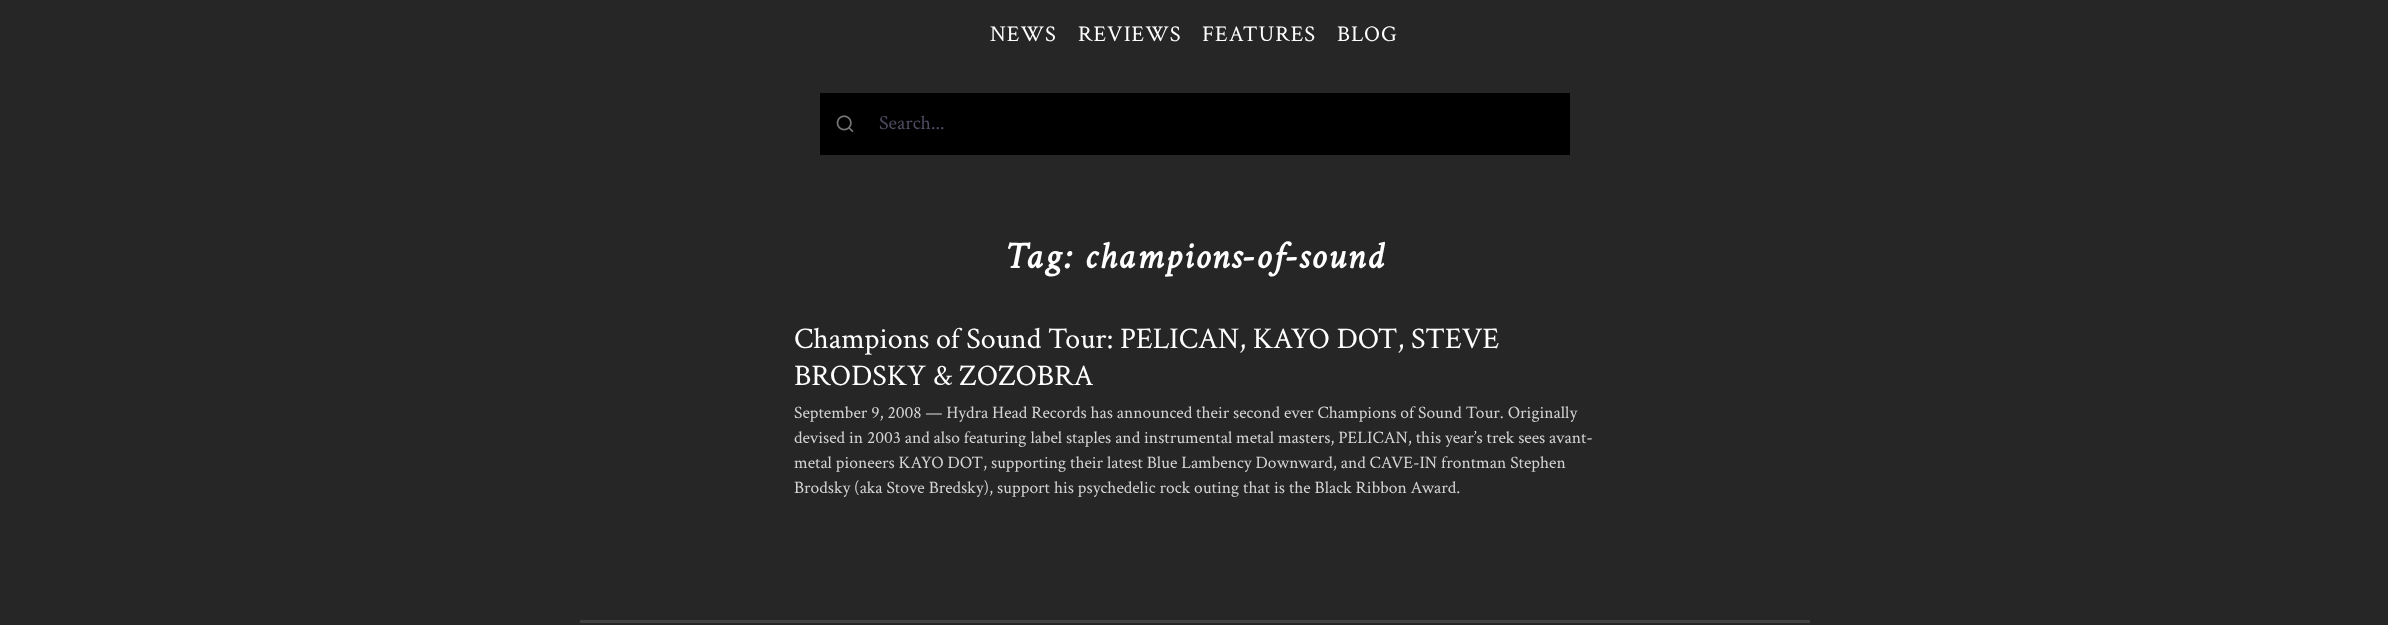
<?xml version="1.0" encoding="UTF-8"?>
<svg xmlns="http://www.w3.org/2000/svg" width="2388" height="625">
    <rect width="100%" height="100%" fill="#262626"/>
    <text x="990" y="41" font-family="Crimson Text" font-size="22.5" letter-spacing="1" fill="#FFFFFF">NEWS</text>
    <text x="1078" y="41" font-family="Crimson Text" font-size="22.5" letter-spacing="1" fill="#FFFFFF">REVIEWS</text>
    <text x="1202" y="41" font-family="Crimson Text" font-size="22.5" letter-spacing="1" fill="#FFFFFF">FEATURES</text>
    <text x="1337" y="41" font-family="Crimson Text" font-size="22.5" letter-spacing="1" fill="#FFFFFF">BLOG</text>
    <rect x="820" y="93" width="750" height="62" fill="#000000"/>
    <image x="836" y="115" width="18" height="17" href="img_01.png"/>
    <text x="879" y="129" font-family="Crimson Text" font-size="20" fill="#4D4C62">Search...</text>
    <text x="1005" y="268" font-family="Crimson Text" font-size="37.5" font-weight="700" font-style="italic" letter-spacing="1.9" fill="#FFFFFF">Tag: champions-of-sound</text>
    <text font-family="Crimson Text" font-size="30" fill="#FFFFFF">
        <tspan x="794" y="348">Champions of Sound Tour: PELICAN, KAYO DOT, STEVE</tspan>
        <tspan x="794" y="385">BRODSKY &amp; ZOZOBRA</tspan>
    </text>
    <text font-family="Crimson Text" font-size="17.5" fill="#D4D4D4">
        <tspan x="794" y="418">September 9, 2008 — Hydra Head Records has announced their second ever Champions of Sound Tour. Originally</tspan>
        <tspan x="794" y="443">devised in 2003 and also featuring label staples and instrumental metal masters, PELICAN, this year’s trek sees avant-</tspan>
        <tspan x="794" y="468">metal pioneers KAYO DOT, supporting their latest Blue Lambency Downward, and CAVE-IN frontman Stephen</tspan>
        <tspan x="794" y="493">Brodsky (aka Stove Bredsky), support his psychedelic rock outing that is the Black Ribbon Award.</tspan>
    </text>
    <rect x="580" y="620" width="1230" height="3" fill="#404040"/>
</svg>
